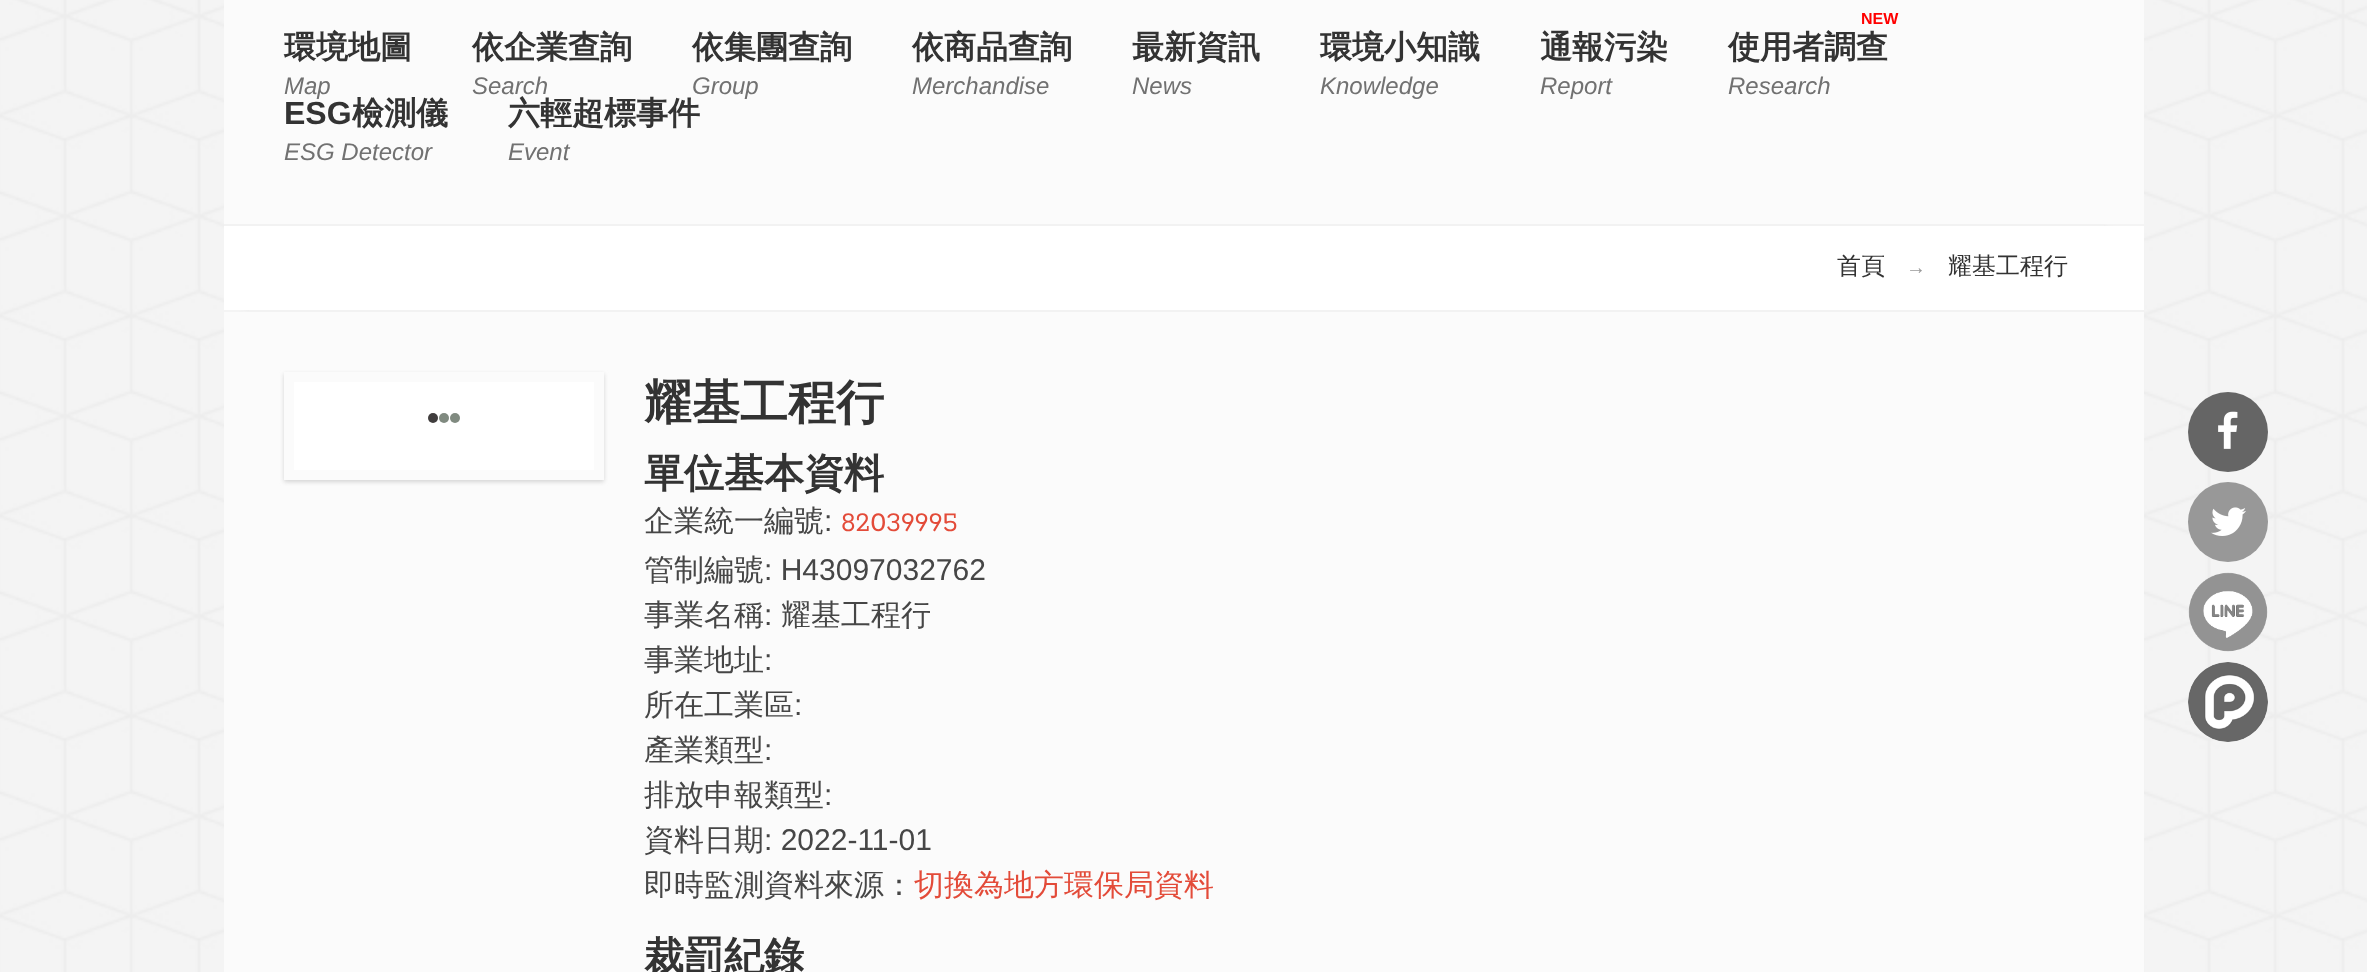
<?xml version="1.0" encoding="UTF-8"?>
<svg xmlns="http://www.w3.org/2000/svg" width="2367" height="972">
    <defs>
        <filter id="blur1" x="-50%" y="-200%" width="200%" height="500%"><feGaussianBlur stdDeviation="2"/></filter>
    </defs>
    <rect width="100%" height="100%" fill="#FFFFFF"/>
    <image x="0" y="0" width="2367" height="972" href="img_01.png"/>
    <rect x="224" y="0" width="1920" height="224" fill="#FBFBFB"/>
    <text x="284" y="58" font-family="WenQuanYi Zen Hei" font-size="32" font-weight="700" fill="#333333">環境地圖</text>
    <text x="284" y="94" font-family="Liberation Sans" font-size="24" font-style="italic" fill="#717171">Map</text>
    <text x="472" y="58" font-family="WenQuanYi Zen Hei" font-size="32" font-weight="700" fill="#333333">依企業查詢</text>
    <text x="472" y="94" font-family="Liberation Sans" font-size="24" font-style="italic" fill="#717171">Search</text>
    <text x="692" y="58" font-family="WenQuanYi Zen Hei" font-size="32" font-weight="700" fill="#333333">依集團查詢</text>
    <text x="692" y="94" font-family="Liberation Sans" font-size="24" font-style="italic" fill="#717171">Group</text>
    <text x="912" y="58" font-family="WenQuanYi Zen Hei" font-size="32" font-weight="700" fill="#333333">依商品查詢</text>
    <text x="912" y="94" font-family="Liberation Sans" font-size="24" font-style="italic" fill="#717171">Merchandise</text>
    <text x="1132" y="58" font-family="WenQuanYi Zen Hei" font-size="32" font-weight="700" fill="#333333">最新資訊</text>
    <text x="1132" y="94" font-family="Liberation Sans" font-size="24" font-style="italic" fill="#717171">News</text>
    <text x="1320" y="58" font-family="WenQuanYi Zen Hei" font-size="32" font-weight="700" fill="#333333">環境小知識</text>
    <text x="1320" y="94" font-family="Liberation Sans" font-size="24" font-style="italic" fill="#717171">Knowledge</text>
    <text x="1540" y="58" font-family="WenQuanYi Zen Hei" font-size="32" font-weight="700" fill="#333333">通報污染</text>
    <text x="1540" y="94" font-family="Liberation Sans" font-size="24" font-style="italic" fill="#717171">Report</text>
    <text x="1861" y="24" font-family="Liberation Sans" font-size="16" font-weight="700" fill="#FF0000">NEW</text>
    <text x="1728" y="58" font-family="WenQuanYi Zen Hei" font-size="32" font-weight="700" fill="#333333">使用者調查</text>
    <text x="1728" y="94" font-family="Liberation Sans" font-size="24" font-style="italic" fill="#717171">Research</text>
    <text x="284" y="124" font-family="Liberation Sans" font-size="32" font-weight="700" fill="#333333">ESG</text>
    <text x="352" y="124" font-family="WenQuanYi Zen Hei" font-size="32" font-weight="700" fill="#333333">檢測儀</text>
    <text x="284" y="160" font-family="Liberation Sans" font-size="24" font-style="italic" fill="#717171">ESG Detector</text>
    <text x="508" y="124" font-family="WenQuanYi Zen Hei" font-size="32" font-weight="700" fill="#333333">六輕超標事件</text>
    <text x="508" y="160" font-family="Liberation Sans" font-size="24" font-style="italic" fill="#717171">Event</text>
    <rect x="224" y="226" width="1920" height="84" fill="#FFFFFF"/>
    <rect x="224" y="224" width="1880" height="2" fill="#F2F2F2"/>
    <rect x="249" y="310" width="1895" height="2" fill="#F2F2F2"/>
    <text x="1837" y="274" font-family="WenQuanYi Zen Hei" font-size="24" font-weight="500" fill="#333333">首頁</text>
    <text x="1906" y="274" font-family="Liberation Sans" font-size="20" fill="#999999">→</text>
    <text x="1948" y="274" font-family="WenQuanYi Zen Hei" font-size="24" font-weight="500" fill="#333333">耀基工程行</text>
    <rect x="224" y="312" width="1920" height="660" fill="#FBFBFB"/>
    <rect x="284" y="374" width="320" height="108" fill="#D4D4D4" filter="url(#blur1)"/>
    <rect x="289" y="377" width="310" height="98" fill="#FFFFFF" stroke="#FBFBFB" stroke-width="10"/>
    <circle cx="433" cy="418" r="5" fill="#403D3D"/>
    <circle cx="444" cy="418" r="5" fill="#808A80"/>
    <circle cx="455" cy="418" r="5" fill="#808A80"/>
    <text x="644" y="419" font-family="WenQuanYi Zen Hei" font-size="48" font-weight="700" fill="#333333">耀基工程行</text>
    <text x="644" y="487" font-family="WenQuanYi Zen Hei" font-size="40" font-weight="700" fill="#333333">單位基本資料</text>
    <text x="644" y="531" font-family="WenQuanYi Zen Hei" font-size="30" font-weight="500" fill="#464646">企業統一編號</text>
    <text x="824" y="531" font-family="Liberation Sans" font-size="30" fill="#464646">:</text>
    <text x="841" y="531" font-family="Rokkitt" font-size="30" fill="#E34B39">82039995</text>
    <text x="644" y="580" font-family="WenQuanYi Zen Hei" font-size="30" font-weight="500" fill="#464646">管制編號</text>
    <text x="764" y="580" font-family="Liberation Sans" font-size="30" fill="#464646">: H43097032762</text>
    <text x="644" y="625" font-family="WenQuanYi Zen Hei" font-size="30" font-weight="500" fill="#464646">事業名稱</text>
    <text x="764" y="625" font-family="Liberation Sans" font-size="30" fill="#464646">:</text>
    <text x="781" y="625" font-family="WenQuanYi Zen Hei" font-size="30" font-weight="500" fill="#464646">耀基工程行</text>
    <text x="644" y="670" font-family="WenQuanYi Zen Hei" font-size="30" font-weight="500" fill="#464646">事業地址</text>
    <text x="764" y="670" font-family="Liberation Sans" font-size="30" fill="#464646">:</text>
    <text x="644" y="715" font-family="WenQuanYi Zen Hei" font-size="30" font-weight="500" fill="#464646">所在工業區</text>
    <text x="794" y="715" font-family="Liberation Sans" font-size="30" fill="#464646">:</text>
    <text x="644" y="760" font-family="WenQuanYi Zen Hei" font-size="30" font-weight="500" fill="#464646">產業類型</text>
    <text x="764" y="760" font-family="Liberation Sans" font-size="30" fill="#464646">:</text>
    <text x="644" y="805" font-family="WenQuanYi Zen Hei" font-size="30" font-weight="500" fill="#464646">排放申報類型</text>
    <text x="824" y="805" font-family="Liberation Sans" font-size="30" fill="#464646">:</text>
    <text x="644" y="850" font-family="WenQuanYi Zen Hei" font-size="30" font-weight="500" fill="#464646">資料日期</text>
    <text x="764" y="850" font-family="Liberation Sans" font-size="30" fill="#464646">: 2022-11-01</text>
    <text x="644" y="895" font-family="WenQuanYi Zen Hei" font-size="30" font-weight="500" fill="#464646">即時監測資料來源：</text>
    <text x="914" y="895" font-family="WenQuanYi Zen Hei" font-size="30" font-weight="500" fill="#E34B39">切換為地方環保局資料</text>
    <circle cx="2228" cy="432" r="40" fill="#656565"/>
    <image x="2218" y="411" width="20" height="38" href="img_02.png"/>
    <circle cx="2228" cy="522" r="40" fill="#989898"/>
    <image x="2211" y="507" width="35" height="29" href="img_03.png"/>
    <image x="2188" y="572" width="80" height="80" href="img_04.png"/>
    <image x="2188" y="662" width="80" height="80" href="img_05.png"/>
    <text x="644" y="970" font-family="WenQuanYi Zen Hei" font-size="40" font-weight="700" fill="#333333">裁罰紀錄</text>
</svg>
